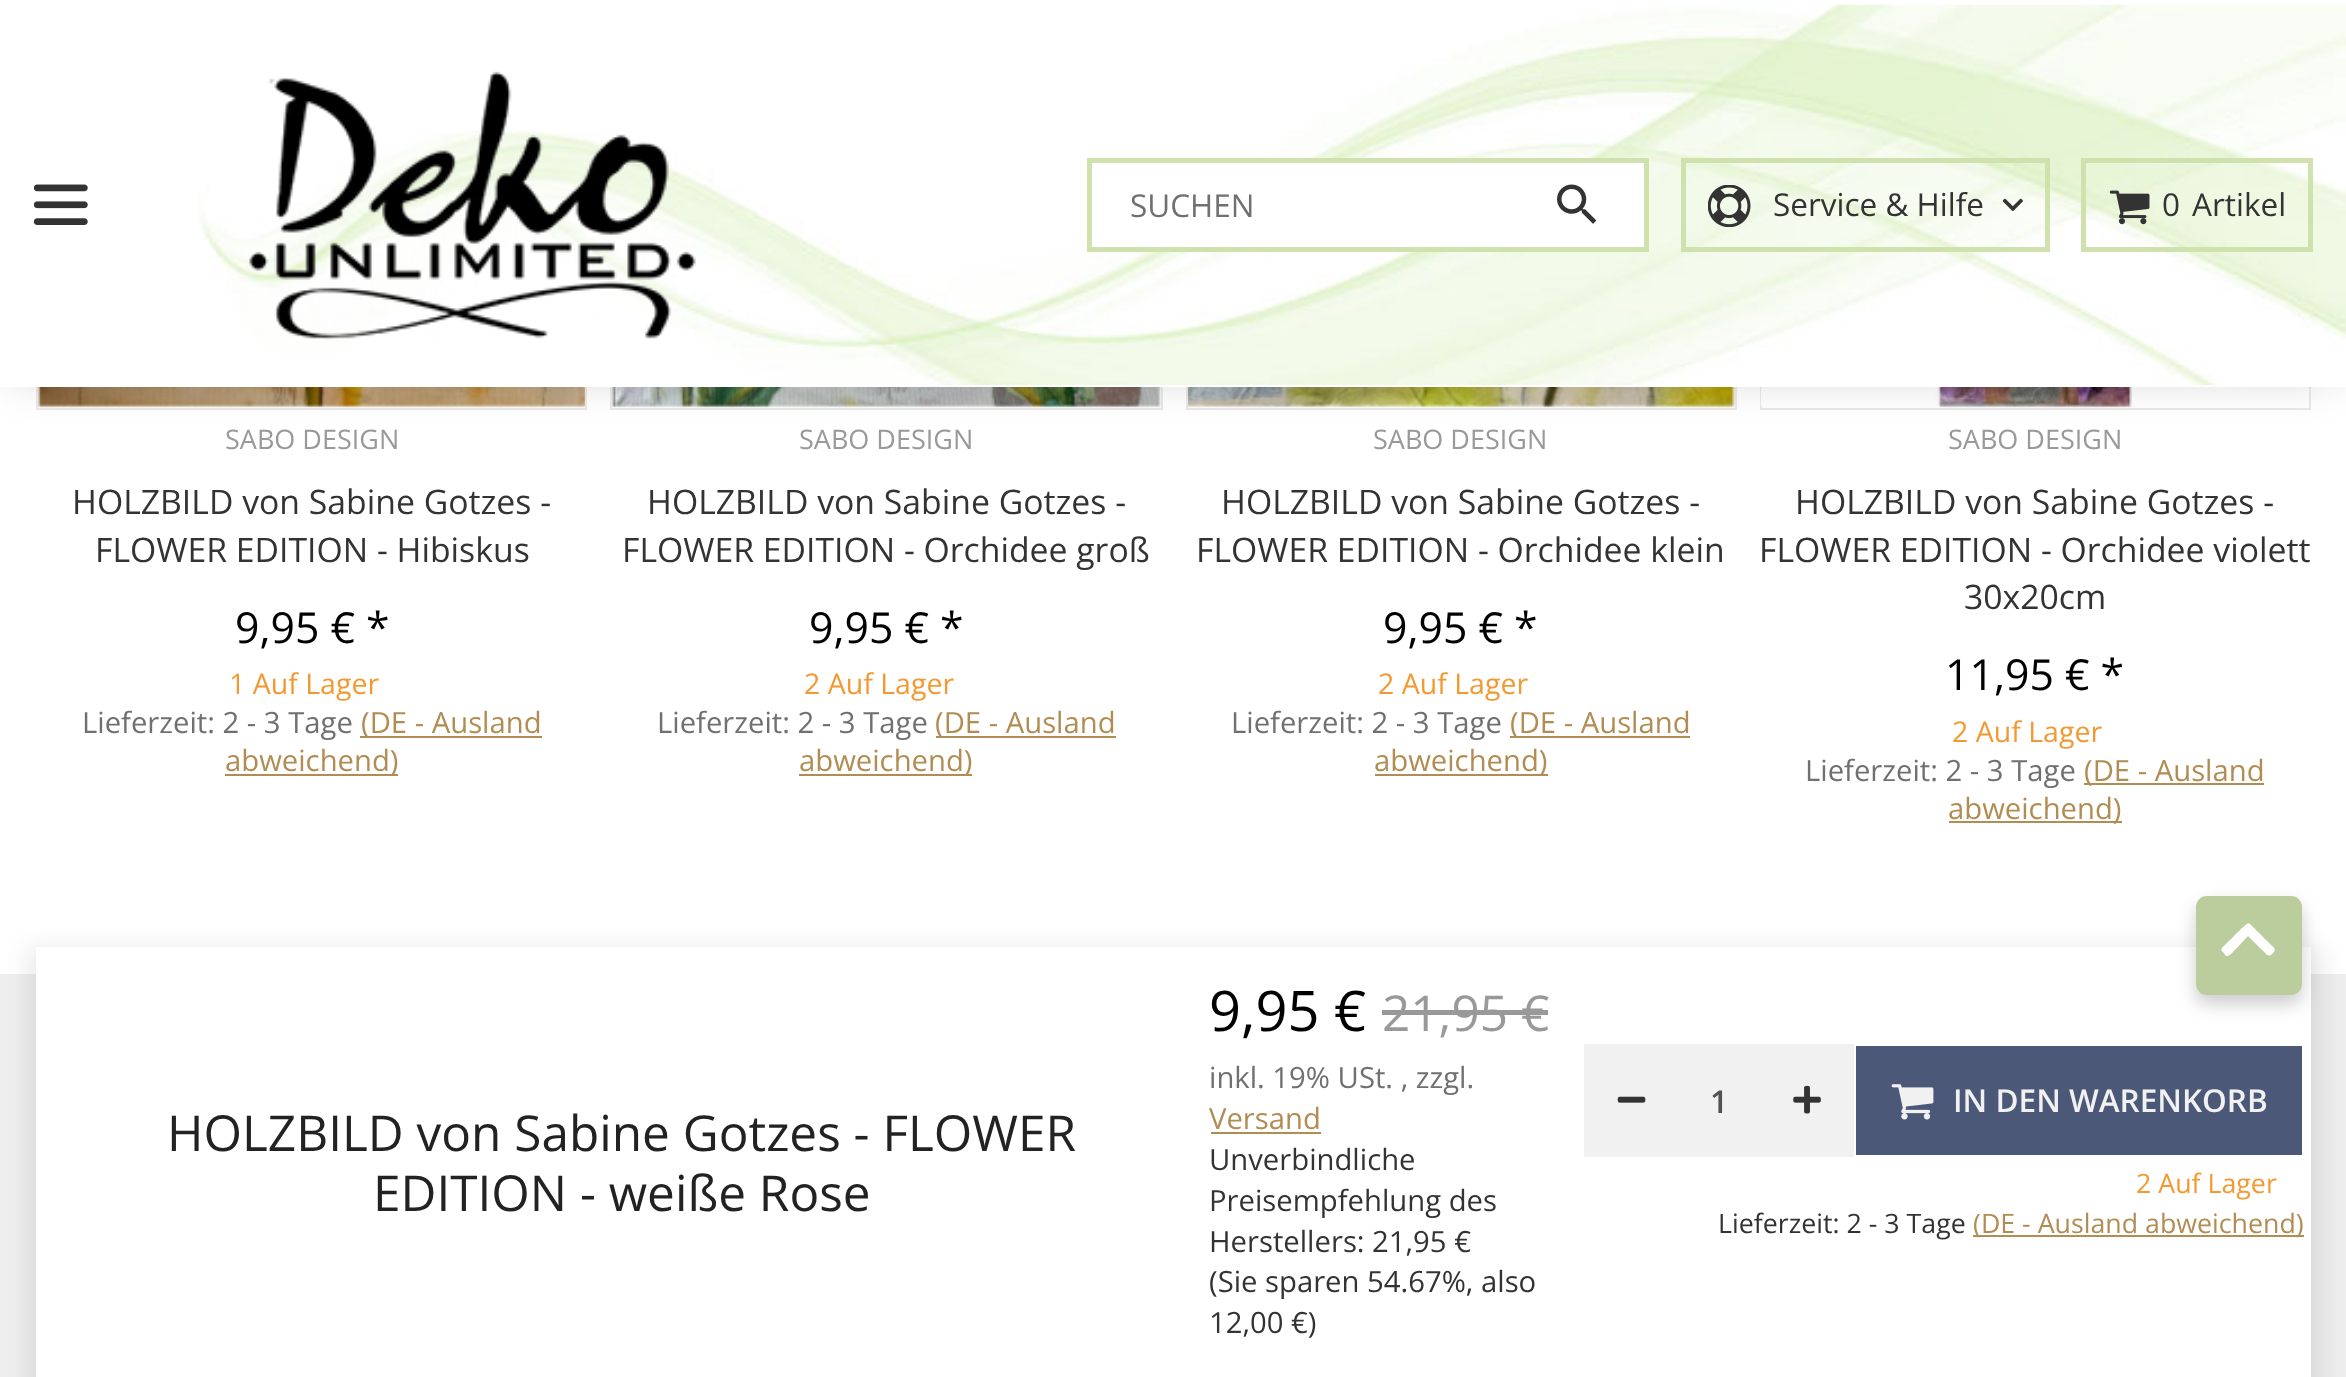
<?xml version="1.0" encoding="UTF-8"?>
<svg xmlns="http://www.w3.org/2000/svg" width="2346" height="1377">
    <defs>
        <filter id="blur1" x="-50%" y="-200%" width="200%" height="500%"><feGaussianBlur stdDeviation="22.5"/></filter>
        <filter id="blur2" x="-50%" y="-200%" width="200%" height="500%"><feGaussianBlur stdDeviation="11"/></filter>
        <filter id="blur3" x="-50%" y="-200%" width="200%" height="500%"><feGaussianBlur stdDeviation="9"/></filter>
    </defs>
    <rect width="100%" height="100%" fill="#FFFFFF"/>
    <rect x="37" y="-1" width="549" height="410" fill="none" stroke="#E9E9E9" stroke-width="2"/>
    <image x="38" y="387" width="547" height="21" href="img_08.png"/>
    <rect x="611" y="-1" width="551" height="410" fill="none" stroke="#E9E9E9" stroke-width="2"/>
    <image x="612" y="387" width="549" height="21" href="img_09.png"/>
    <rect x="1187" y="-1" width="549" height="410" fill="none" stroke="#E9E9E9" stroke-width="2"/>
    <image x="1188" y="387" width="547" height="21" href="img_10.png"/>
    <rect x="1761" y="-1" width="549" height="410" fill="none" stroke="#E9E9E9" stroke-width="2"/>
    <image x="1761" y="387" width="372" height="21" href="img_11.png"/>
    <rect x="11" y="11" width="2325" height="365" fill="#000000" fill-opacity="0.2" filter="url(#blur1)"/>
    <rect x="0" y="0" width="2346" height="387" fill="#FFFFFF"/>
    <image x="199" y="4" width="2147" height="381" href="img_01.png"/>
    <image x="34" y="184" width="54" height="41" href="img_02.png"/>
    <image x="249" y="71" width="447" height="269" href="img_03.png"/>
    <rect x="1089.5" y="160.5" width="557" height="89" fill="#FFFFFF" stroke="#CFE2AD" stroke-width="5"/>
    <text x="1130" y="217" font-family="Open Sans" font-size="31.5" fill="#707070">SUCHEN</text>
    <image x="1557" y="184" width="40" height="40" href="img_04.png"/>
    <rect x="1683.5" y="160.5" width="364" height="89" fill="none" stroke="#CFE2AD" stroke-width="5"/>
    <image x="1708" y="185" width="43" height="42" href="img_05.png"/>
    <text x="1773" y="216" font-family="Open Sans" font-size="31.5" fill="#333333">Service &amp; Hilfe</text>
    <image x="2002" y="198" width="21" height="13" href="img_06.png"/>
    <rect x="2083.5" y="160.5" width="227" height="89" fill="none" stroke="#CFE2AD" stroke-width="5"/>
    <image x="2109" y="190" width="41" height="35" href="img_07.png"/>
    <text x="2162" y="216" font-family="Open Sans" font-size="31.5" fill="#333333">0</text>
    <text x="2192" y="216" font-family="Open Sans" font-size="31.5" fill="#333333">Artikel</text>
    <text x="225" y="449" font-family="Open Sans" font-size="27" fill="#999999">SABO DESIGN</text>
    <text x="72" y="514" font-family="Open Sans" font-size="33.75" fill="#333333">HOLZBILD von Sabine Gotzes -</text>
    <text x="95" y="562" font-family="Open Sans" font-size="33.75" fill="#333333">FLOWER EDITION - Hibiskus</text>
    <text x="235" y="643" font-family="Open Sans" font-size="42.75" fill="#000000">9,95 € *</text>
    <text x="229" y="694" font-family="Open Sans" font-size="28.5" fill="#F39932">1 Auf Lager</text>
    <text x="82" y="733" font-family="Open Sans" font-size="29.25" fill="#707070">Lieferzeit: 2 - 3 Tage</text>
    <rect x="360" y="736" width="182" height="2" fill="#B28D53"/>
    <text x="361" y="733" font-family="Open Sans" font-size="29.25" fill="#B28D53">(DE - Ausland</text>
    <rect x="225" y="774" width="173" height="2" fill="#B28D53"/>
    <text x="225" y="771" font-family="Open Sans" font-size="29.25" fill="#B28D53">abweichend)</text>
    <text x="799" y="449" font-family="Open Sans" font-size="27" fill="#999999">SABO DESIGN</text>
    <text x="647" y="514" font-family="Open Sans" font-size="33.75" fill="#333333">HOLZBILD von Sabine Gotzes -</text>
    <text x="622" y="562" font-family="Open Sans" font-size="33.75" fill="#333333">FLOWER EDITION - Orchidee groß</text>
    <text x="809" y="643" font-family="Open Sans" font-size="42.75" fill="#000000">9,95 € *</text>
    <text x="804" y="694" font-family="Open Sans" font-size="28.5" fill="#F39932">2 Auf Lager</text>
    <text x="657" y="733" font-family="Open Sans" font-size="29.25" fill="#707070">Lieferzeit: 2 - 3 Tage</text>
    <rect x="936" y="736" width="180" height="2" fill="#B28D53"/>
    <text x="935" y="733" font-family="Open Sans" font-size="29.25" fill="#B28D53">(DE - Ausland</text>
    <rect x="799" y="774" width="173" height="2" fill="#B28D53"/>
    <text x="799" y="771" font-family="Open Sans" font-size="29.25" fill="#B28D53">abweichend)</text>
    <text x="1373" y="449" font-family="Open Sans" font-size="27" fill="#999999">SABO DESIGN</text>
    <text x="1221" y="514" font-family="Open Sans" font-size="33.75" fill="#333333">HOLZBILD von Sabine Gotzes -</text>
    <text x="1196" y="562" font-family="Open Sans" font-size="33.75" fill="#333333">FLOWER EDITION - Orchidee klein</text>
    <text x="1383" y="643" font-family="Open Sans" font-size="42.75" fill="#000000">9,95 € *</text>
    <text x="1378" y="694" font-family="Open Sans" font-size="28.5" fill="#F39932">2 Auf Lager</text>
    <text x="1231" y="733" font-family="Open Sans" font-size="29.25" fill="#707070">Lieferzeit: 2 - 3 Tage</text>
    <rect x="1510" y="736" width="180" height="2" fill="#B28D53"/>
    <text x="1510" y="733" font-family="Open Sans" font-size="29.25" fill="#B28D53">(DE - Ausland</text>
    <rect x="1375" y="774" width="173" height="2" fill="#B28D53"/>
    <text x="1374" y="771" font-family="Open Sans" font-size="29.25" fill="#B28D53">abweichend)</text>
    <text x="1948" y="449" font-family="Open Sans" font-size="27" fill="#999999">SABO DESIGN</text>
    <text x="1795" y="514" font-family="Open Sans" font-size="33.75" fill="#333333">HOLZBILD von Sabine Gotzes -</text>
    <text x="1759" y="562" font-family="Open Sans" font-size="33.75" fill="#333333">FLOWER EDITION - Orchidee violett</text>
    <text x="1964" y="609" font-family="Open Sans" font-size="33.75" fill="#333333">30x20cm</text>
    <text x="1945" y="690" font-family="Open Sans" font-size="42.75" fill="#000000">11,95 € *</text>
    <text x="1952" y="742" font-family="Open Sans" font-size="28.5" fill="#F39932">2 Auf Lager</text>
    <text x="1805" y="781" font-family="Open Sans" font-size="29.25" fill="#707070">Lieferzeit: 2 - 3 Tage</text>
    <rect x="2084" y="783" width="180" height="2" fill="#B28D53"/>
    <text x="2084" y="781" font-family="Open Sans" font-size="29.25" fill="#B28D53">(DE - Ausland</text>
    <rect x="1949" y="821" width="173" height="2" fill="#B28D53"/>
    <text x="1948" y="819" font-family="Open Sans" font-size="29.25" fill="#B28D53">abweichend)</text>
    <rect x="0" y="974" width="2346" height="403" fill="#EEEEEE"/>
    <rect x="27" y="947" width="2297" height="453" fill="#000000" fill-opacity="0.08" filter="url(#blur2)"/>
    <rect x="36" y="947" width="2275" height="430" fill="#FFFFFF"/>
    <text x="167" y="1151" font-family="Open Sans" font-size="49.5" fill="#222222">HOLZBILD von Sabine Gotzes - FLOWER</text>
    <text x="373" y="1211" font-family="Open Sans" font-size="49.5" fill="#222222">EDITION - weiße Rose</text>
    <text x="1209" y="1031" font-family="Open Sans" font-size="56" fill="#000000">9,95 €</text>
    <text x="1382" y="1031" font-family="Open Sans" font-size="49.5" fill="#999999">21,95 €</text>
    <rect x="1382" y="1010" width="166" height="5" fill="#999999"/>
    <text x="1209" y="1088" font-family="Open Sans" font-size="29.25" fill="#707070">inkl. 19% USt. , zzgl.</text>
    <text x="1209" y="1129" font-family="Open Sans" font-size="29.25" fill="#B28D53">Versand</text>
    <rect x="1211" y="1132" width="110" height="2" fill="#B28D53"/>
    <text font-family="Open Sans" font-size="29.25" fill="#333333">
        <tspan x="1209" y="1170">Unverbindliche</tspan>
        <tspan x="1209" y="1211">Preisempfehlung des</tspan>
        <tspan x="1209" y="1252">Herstellers: 21,95 €</tspan>
        <tspan x="1209" y="1292">(Sie sparen 54.67%, also</tspan>
        <tspan x="1209" y="1333">12,00 €)</tspan>
    </text>
    <rect x="1584" y="1044" width="270" height="113" fill="#F1F1F1"/>
    <image x="1617" y="1096" width="29" height="7" href="img_12.png"/>
    <text x="1710" y="1113" font-family="Open Sans" font-size="31.5" font-weight="600" fill="#525252">1</text>
    <image x="1793" y="1085" width="28" height="29" href="img_13.png"/>
    <rect x="1856" y="1046" width="446" height="109" fill="#4B5878"/>
    <image x="1891" y="1084" width="43" height="36" href="img_14.png"/>
    <text x="1953" y="1112" font-family="Open Sans" font-size="31.5" font-weight="600" fill="#F1F1F1">IN DEN WARENKORB</text>
    <text x="2136" y="1193" font-family="Open Sans" font-size="26.75" fill="#F39932">2 Auf Lager</text>
    <text x="1718" y="1233" font-family="Open Sans" font-size="26.75" fill="#333333">Lieferzeit: 2 - 3 Tage</text>
    <rect x="1973" y="1235" width="331" height="2" fill="#B28D53"/>
    <text x="1973" y="1233" font-family="Open Sans" font-size="26.75" fill="#B28D53">(DE - Ausland abweichend)</text>
    <rect x="2196" y="905" width="106" height="99" rx="11" fill="#000000" fill-opacity="0.2" filter="url(#blur3)"/>
    <rect x="2197" y="897" width="104" height="97" rx="10" fill="#BBCC9D" stroke="#BBCC9D" stroke-width="2"/>
    <path d="M 2250 924 L 2270 944 C 2274 948 2277 949 2273 953 C 2268 959 2266 953 2261 949 L 2248 936 L 2236 949 C 2234 950 2230 957 2226 956 L 2224 953 C 2219 949 2222 948 2226 944 L 2242 928 C 2244 927 2248 921 2250 924 Z" fill="#FFFFFF"/>
</svg>
